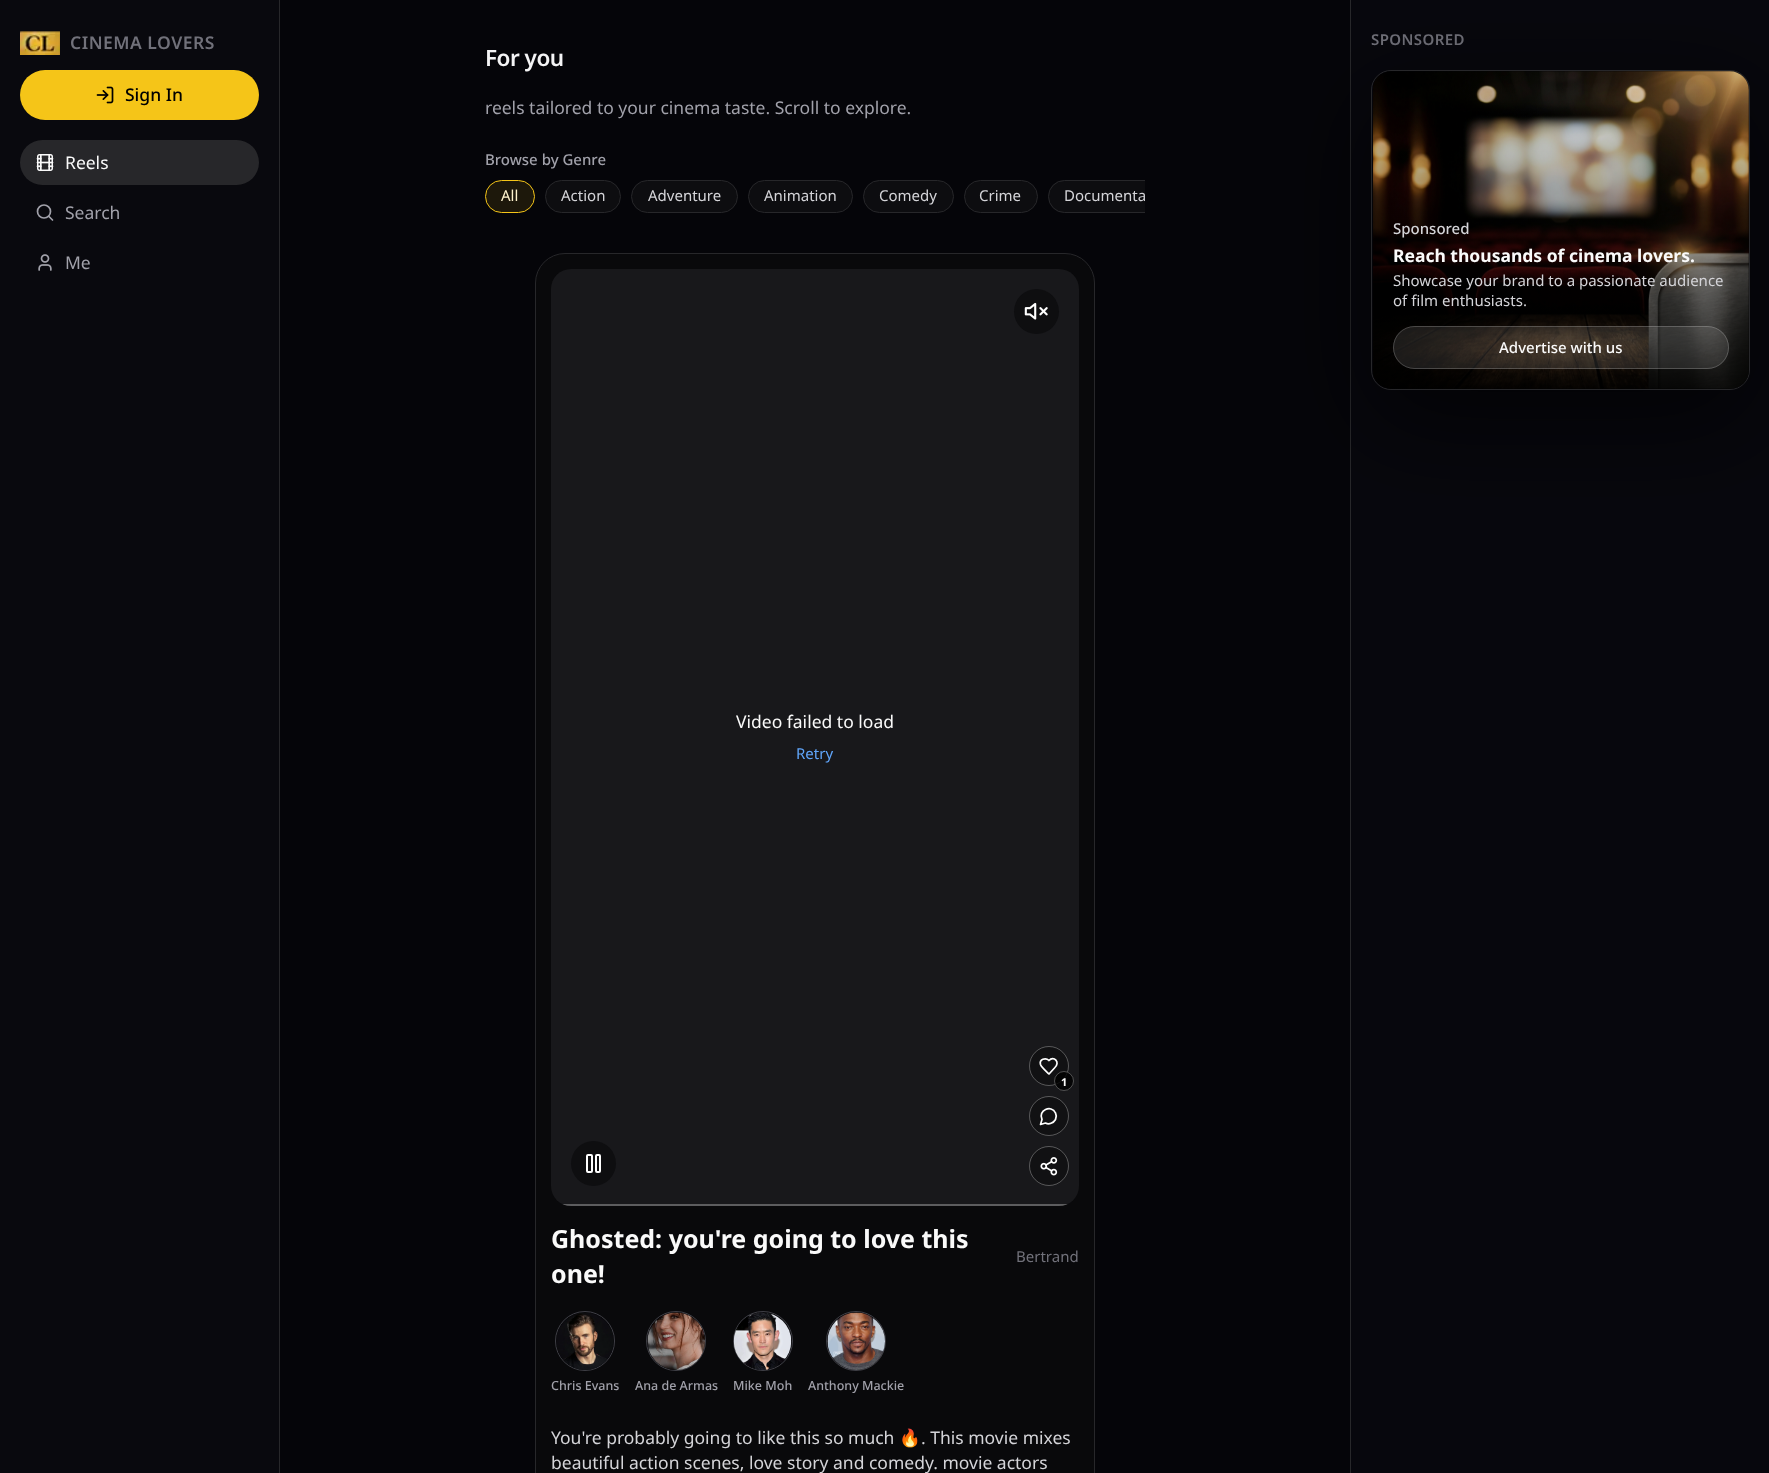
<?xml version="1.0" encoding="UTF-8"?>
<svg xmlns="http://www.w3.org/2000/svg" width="1769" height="1473">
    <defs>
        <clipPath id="clip1"><rect x="485" y="180" width="660" height="43"/></clipPath>
        <clipPath id="clip2"><rect x="551" y="269" width="528" height="937" rx="20"/></clipPath>
        <filter id="blur1" x="-50%" y="-200%" width="200%" height="500%"><feGaussianBlur stdDeviation="50"/></filter>
        <linearGradient id="g1" gradientUnits="userSpaceOnUse" x1="1561" y1="71" x2="1561" y2="389"><stop offset="0" stop-color="#000000" stop-opacity="0.1"/><stop offset="0.5" stop-color="#000000" stop-opacity="0.4"/><stop offset="1" stop-color="#000000" stop-opacity="0.8"/></linearGradient>
    </defs>
    <rect width="100%" height="100%" fill="#050509"/>
    <rect x="0" y="0" width="279" height="1473" fill="#09090E"/>
    <rect x="279" y="0" width="1" height="1473" fill="#27272A"/>
    <image x="20" y="31" width="40" height="24" href="img_01.png"/>
    <text x="70" y="49" font-family="Noto Sans" font-size="17.5" font-weight="600" letter-spacing="0.5" fill="#71717A">CINEMA LOVERS</text>
    <rect x="20" y="70" width="239" height="50" rx="25" fill="#F5C518"/>
    <image x="96" y="86" width="18" height="18" href="img_02.png"/>
    <text x="125" y="101" font-family="Noto Sans" font-size="17.5" font-weight="500" fill="#000000">Sign In</text>
    <rect x="20" y="140" width="239" height="45" rx="22.5" fill="#27272A"/>
    <image x="36" y="154" width="18" height="17" href="img_03.png"/>
    <text x="65" y="169" font-family="Noto Sans" font-size="17.5" fill="#FAFAFA">Reels</text>
    <circle cx="44" cy="211.5" r="6.5" fill="none" stroke="#A1A1AA" stroke-width="1.7"/>
    <path d="M 52.5 220 L 49 216.5" fill="none" stroke="#A1A1AA" stroke-width="1.7" stroke-linecap="round" stroke-linejoin="round"/>
    <text x="65" y="219" font-family="Noto Sans" font-size="17.5" fill="#A1A1AA">Search</text>
    <image x="38" y="254" width="14" height="17" href="img_04.png"/>
    <text x="65" y="269" font-family="Noto Sans" font-size="17.5" fill="#A1A1AA">Me</text>
    <text x="485" y="66" font-family="Noto Sans" font-size="22.5" font-weight="600" letter-spacing="-0.5" fill="#F4F4F5">For you</text>
    <text x="485" y="114" font-family="Noto Sans" font-size="17.5" fill="#A1A1AA">reels tailored to your cinema taste. Scroll to explore.</text>
    <text x="485" y="165" font-family="Noto Sans" font-size="15" font-weight="500" fill="#A1A1AA">Browse by Genre</text>
    <rect x="485.5" y="180.5" width="49" height="32" rx="16" fill="#1D180B" stroke="#F5C518"/>
    <text x="501" y="201" font-family="Noto Sans" font-size="15" fill="#FFF3CD">All</text>
    <rect x="545.5" y="180.5" width="75" height="32" rx="16" fill="#0D0D10" stroke="#27272A"/>
    <text x="561" y="201" font-family="Noto Sans" font-size="15" fill="#D4D4D8">Action</text>
    <rect x="631.5" y="180.5" width="106" height="32" rx="16" fill="#0D0D10" stroke="#27272A"/>
    <text x="648" y="201" font-family="Noto Sans" font-size="15" fill="#D4D4D8">Adventure</text>
    <rect x="748.5" y="180.5" width="104" height="32" rx="16" fill="#0D0D10" stroke="#27272A"/>
    <text x="764" y="201" font-family="Noto Sans" font-size="15" fill="#D4D4D8">Animation</text>
    <rect x="863.5" y="180.5" width="90" height="32" rx="16" fill="#0D0D10" stroke="#27272A"/>
    <text x="879" y="201" font-family="Noto Sans" font-size="15" fill="#D4D4D8">Comedy</text>
    <rect x="964.5" y="180.5" width="73" height="32" rx="16" fill="#0D0D10" stroke="#27272A"/>
    <text x="979" y="201" font-family="Noto Sans" font-size="15" fill="#D4D4D8">Crime</text>
    <path d="M 1064.5 180 H 1145 V 213 H 1064.5 C 1055.5 213 1048 205.5 1048 196.5 C 1048 187.5 1055.5 180 1064.5 180 Z" fill="#0D0D10"/>
    <g clip-path="url(#clip1)">
        <rect x="1048.5" y="180.5" width="127" height="32" rx="16" fill="none" stroke="#27272A"/>
    </g>
    <text x="1064" y="201" font-family="Noto Sans" font-size="15" fill="#D4D4D8">Documenta</text>
    <rect x="535.5" y="253.5" width="559" height="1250" rx="29.5" fill="#09090B" stroke="#27272A"/>
    <rect x="551" y="269" width="528" height="937" rx="20" fill="#18181B"/>
    <circle cx="1036.5" cy="311.5" r="22.5" fill="#0E0E10"/>
    <image x="1024" y="302" width="24" height="18" href="img_05.png"/>
    <circle cx="593.5" cy="1163.5" r="22.5" fill="#0E0E10"/>
    <rect x="596" y="1155" width="4" height="17" rx="1" fill="none" stroke="#FFFFFF" stroke-width="2"/>
    <rect x="587" y="1155" width="5" height="17" rx="1" fill="none" stroke="#FFFFFF" stroke-width="2"/>
    <text x="736" y="728" font-family="Noto Sans" font-size="17.5" fill="#FAFAFA">Video failed to load</text>
    <text x="796" y="759" font-family="Noto Sans" font-size="15" fill="#60A5FA">Retry</text>
    <g clip-path="url(#clip2)">
        <rect x="562" y="1204" width="506" height="2" fill="#FFFFFF" fill-opacity="0.3"/>
    </g>
    <circle cx="1049" cy="1066" r="20" fill="#111113"/>
    <circle cx="1049" cy="1066" r="19.5" fill="none" stroke="#FFFFFF" stroke-opacity="0.3"/>
    <path d="M 1054.5 1068 C 1061 1062 1053.5 1055.5 1049 1060.5 C 1045.5 1057 1039 1059.5 1040.5 1064.5 C 1041.5 1067.5 1046.5 1071.5 1049 1074 Z" fill="none" stroke="#FFFFFF" stroke-width="1.7" stroke-linecap="round" stroke-linejoin="round"/>
    <circle cx="1064" cy="1081" r="10" fill="#000000" fill-opacity="0.8"/>
    <circle cx="1064" cy="1081" r="9.5" fill="none" stroke="#FFFFFF" stroke-opacity="0.3"/>
    <text x="1061" y="1086" font-family="Noto Sans" font-size="11" font-weight="700" fill="#FAFAFA">1</text>
    <circle cx="1049" cy="1116" r="20" fill="#111113"/>
    <circle cx="1049" cy="1116" r="19.5" fill="none" stroke="#FFFFFF" stroke-opacity="0.3"/>
    <path d="M 1045.5 1123 C 1049 1125 1053.5 1123 1055.5 1119.5 C 1056.5 1117.5 1056.5 1115 1055.5 1113 C 1051.5 1104 1037.5 1110.5 1042 1119.5 L 1040.5 1124.5 Z" fill="none" stroke="#FFFFFF" stroke-width="1.7" stroke-linecap="round" stroke-linejoin="round"/>
    <circle cx="1049" cy="1166" r="20" fill="#111113"/>
    <circle cx="1049" cy="1166" r="19.5" fill="none" stroke="#FFFFFF" stroke-opacity="0.3"/>
    <image x="1040" y="1157" width="18" height="19" href="img_06.png"/>
    <text font-family="Noto Sans" font-size="25" font-weight="700" fill="#FAFAFA">
        <tspan x="551" y="1248">Ghosted: you're going to love this</tspan>
        <tspan x="551" y="1283">one!</tspan>
    </text>
    <text x="1016" y="1262" font-family="Noto Sans" font-size="15" fill="#71717A">Bertrand</text>
    <circle cx="585" cy="1341" r="29.5" fill="none" stroke="#3F3F46"/>
    <image x="556" y="1313" width="58" height="57" href="img_07.png"/>
    <text x="551" y="1390" font-family="Noto Sans" font-size="12.5" font-weight="500" fill="#A1A1AA">Chris Evans</text>
    <circle cx="676" cy="1341" r="29.5" fill="none" stroke="#3F3F46"/>
    <image x="647" y="1312" width="58" height="58" href="img_08.png"/>
    <text x="635" y="1390" font-family="Noto Sans" font-size="12.5" font-weight="500" fill="#A1A1AA">Ana de Armas</text>
    <circle cx="763" cy="1341" r="29.5" fill="none" stroke="#3F3F46"/>
    <image x="733" y="1312" width="59" height="58" href="img_09.png"/>
    <text x="733" y="1390" font-family="Noto Sans" font-size="12.5" font-weight="500" fill="#A1A1AA">Mike Moh</text>
    <circle cx="856" cy="1341" r="29.5" fill="none" stroke="#3F3F46"/>
    <image x="827" y="1312" width="58" height="58" href="img_10.png"/>
    <text x="808" y="1390" font-family="Noto Sans" font-size="12.5" font-weight="500" fill="#A1A1AA">Anthony Mackie</text>
    <text x="551" y="1444" font-family="Noto Sans" font-size="17.5" fill="#D4D4D8">You're probably going to like this so much</text>
    <text x="899" y="1444" font-family="Noto Color Emoji" font-size="17.5" fill="#D4D4D8">🔥</text>
    <text x="921" y="1444" font-family="Noto Sans" font-size="17.5" fill="#D4D4D8">. This movie mixes</text>
    <text x="551" y="1469" font-family="Noto Sans" font-size="17.5" fill="#D4D4D8">beautiful action scenes, love story and comedy. movie actors</text>
    <rect x="1351" y="0" width="418" height="1473" fill="#07070D"/>
    <rect x="1350" y="0" width="1" height="1473" fill="#27272A"/>
    <text x="1371" y="45" font-family="Noto Sans" font-size="15" font-weight="600" letter-spacing="0.4" fill="#71717A">SPONSORED</text>
    <rect x="1371" y="100" width="379" height="320" rx="20" fill="#000000" fill-opacity="0.7" filter="url(#blur1)"/>
    <rect x="1371.5" y="70.5" width="378" height="319" rx="19.5" fill="none" stroke="#27272A"/>
    <image x="1373" y="71" width="376" height="318" href="img_11.png"/>
    <rect x="1373" y="71" width="376" height="318" rx="19" fill="url(#g1)"/>
    <text x="1393" y="234" font-family="Noto Sans" font-size="15" font-weight="500" fill="#D4D4D8">Sponsored</text>
    <text x="1393" y="262" font-family="Noto Sans" font-size="17.5" font-weight="700" fill="#FAFAFA">Reach thousands of cinema lovers.</text>
    <text font-family="Noto Sans" font-size="15" fill="#D4D4D8">
        <tspan x="1393" y="286">Showcase your brand to a passionate audience</tspan>
        <tspan x="1393" y="306">of film enthusiasts.</tspan>
    </text>
    <rect x="1393" y="326" width="336" height="43" rx="21.5" fill="#FFFFFF" fill-opacity="0.1"/>
    <rect x="1393.5" y="326.5" width="335" height="42" rx="21" fill="none" stroke="#FFFFFF" stroke-opacity="0.2"/>
    <text x="1499" y="353" font-family="Noto Sans" font-size="15" font-weight="500" fill="#FAFAFA">Advertise with us</text>
</svg>
